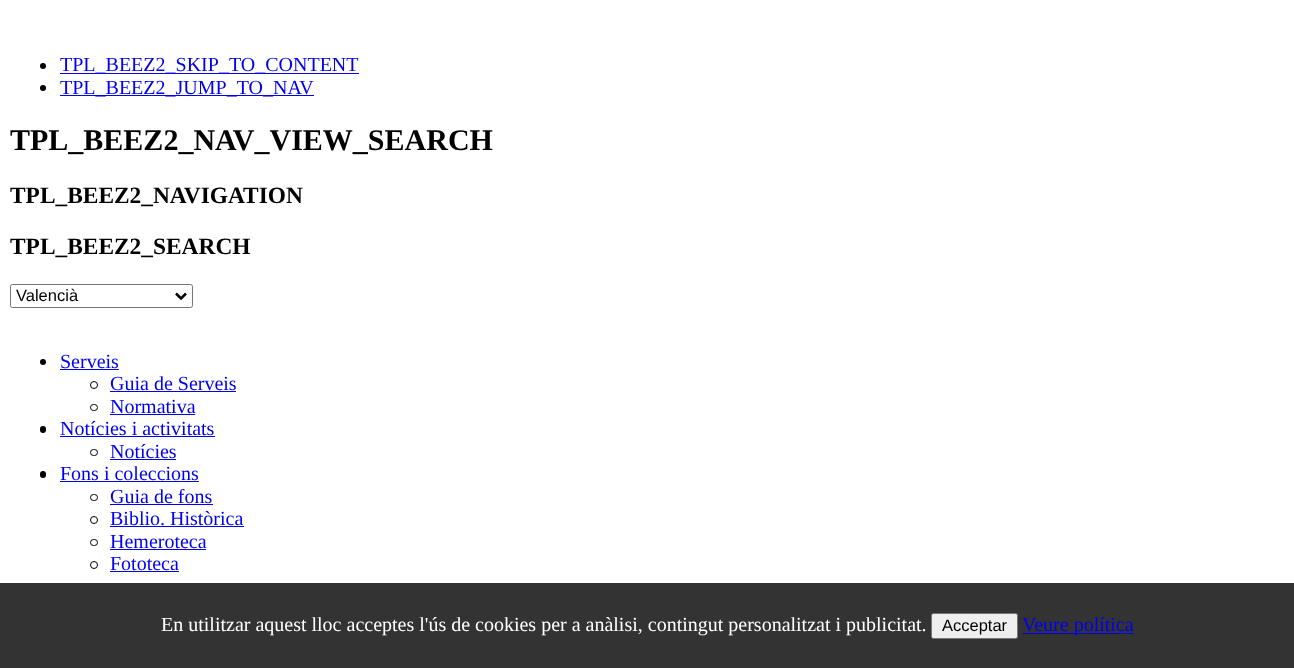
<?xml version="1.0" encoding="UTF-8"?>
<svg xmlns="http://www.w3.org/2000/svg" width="1294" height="668">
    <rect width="100%" height="100%" fill="#FFFFFF"/>
    <circle cx="43" cy="66" r="3" fill="#000000"/>
    <rect x="60" y="73" width="299" height="1" fill="#0000EE"/>
    <text x="60" y="71" font-family="Liberation Serif" font-size="20" fill="#0000EE">TPL_BEEZ2_SKIP_TO_CONTENT</text>
    <circle cx="43" cy="88" r="3" fill="#000000"/>
    <rect x="60" y="95" width="254" height="1" fill="#0000EE"/>
    <text x="60" y="94" font-family="Liberation Serif" font-size="20" fill="#0000EE">TPL_BEEZ2_JUMP_TO_NAV</text>
    <text x="10" y="150" font-family="Liberation Serif" font-size="30" font-weight="700" fill="#000000">TPL_BEEZ2_NAV_VIEW_SEARCH</text>
    <text x="10" y="203" font-family="Liberation Serif" font-size="23.4" font-weight="700" fill="#000000">TPL_BEEZ2_NAVIGATION</text>
    <text x="10" y="254" font-family="Liberation Serif" font-size="23.4" font-weight="700" fill="#000000">TPL_BEEZ2_SEARCH</text>
    <rect x="10.5" y="284.5" width="182" height="23" rx="2" fill="none" stroke="#767676"/>
    <path d="M 176 293.5 L 181 298.5 L 186 293.5" fill="none" stroke="#000000" stroke-width="2.5"/>
    <text x="16" y="301" font-family="Liberation Sans" font-size="16.5" fill="#000000">Valencià</text>
    <circle cx="43" cy="362" r="3" fill="#000000"/>
    <text x="60" y="368" font-family="Liberation Serif" font-size="20" fill="#0000EE">Serveis</text>
    <rect x="60" y="369" width="59" height="1" fill="#0000EE"/>
    <circle cx="94" cy="385" r="3.5" fill="none" stroke="#000000"/>
    <text x="110" y="390" font-family="Liberation Serif" font-size="20" fill="#0000EE">Guia de Serveis</text>
    <rect x="110" y="391" width="126" height="1" fill="#0000EE"/>
    <rect x="90.5" y="404.5" width="7" height="6" rx="3" fill="none" stroke="#000000"/>
    <text x="110" y="413" font-family="Liberation Serif" font-size="20" fill="#0000EE">Normativa</text>
    <rect x="110" y="414" width="85" height="1" fill="#0000EE"/>
    <rect x="40" y="426" width="6" height="7" rx="3" fill="#000000"/>
    <text x="60" y="435" font-family="Liberation Serif" font-size="20" fill="#0000EE">Notícies i activitats</text>
    <rect x="60" y="436" width="155" height="1" fill="#0000EE"/>
    <rect x="90.5" y="449.5" width="7" height="6" rx="3" fill="none" stroke="#000000"/>
    <text x="110" y="458" font-family="Liberation Serif" font-size="20" fill="#0000EE">Notícies</text>
    <rect x="110" y="459" width="66" height="1" fill="#0000EE"/>
    <rect x="40" y="471" width="6" height="7" rx="3" fill="#000000"/>
    <text x="60" y="480" font-family="Liberation Serif" font-size="20" fill="#0000EE">Fons i coleccions</text>
    <rect x="60" y="481" width="139" height="1" fill="#0000EE"/>
    <rect x="90.5" y="494.5" width="7" height="6" rx="3" fill="none" stroke="#000000"/>
    <text x="110" y="503" font-family="Liberation Serif" font-size="20" fill="#0000EE">Guia de fons</text>
    <rect x="110" y="504" width="103" height="1" fill="#0000EE"/>
    <circle cx="94" cy="520" r="3.5" fill="none" stroke="#000000"/>
    <text x="110" y="525" font-family="Liberation Serif" font-size="20" fill="#0000EE">Biblio. Històrica</text>
    <rect x="110" y="526" width="134" height="1" fill="#0000EE"/>
    <rect x="90.5" y="539.5" width="7" height="6" rx="3" fill="none" stroke="#000000"/>
    <text x="110" y="548" font-family="Liberation Serif" font-size="20" fill="#0000EE">Hemeroteca</text>
    <rect x="110" y="549" width="96" height="1" fill="#0000EE"/>
    <circle cx="94" cy="565" r="3.5" fill="none" stroke="#000000"/>
    <text x="110" y="570" font-family="Liberation Serif" font-size="20" fill="#0000EE">Fototeca</text>
    <rect x="110" y="571" width="69" height="1" fill="#0000EE"/>
    <rect x="0" y="583" width="1294" height="85" fill="#333333"/>
    <text x="161" y="631" font-family="Liberation Serif" font-size="20" fill="#FFFFFF">En utilitzar aquest lloc acceptes l'ús de cookies per a anàlisi, contingut personalitzat i publicitat.</text>
    <rect x="931.5" y="613.5" width="86" height="25" rx="2" fill="#EFEFEF" stroke="#767676"/>
    <text x="942" y="631" font-family="Liberation Sans" font-size="16.5" fill="#000000">Acceptar</text>
    <rect x="1023" y="633" width="111" height="1" fill="#0000EE"/>
    <text x="1022" y="631" font-family="Liberation Serif" font-size="20" fill="#0000EE">Veure política</text>
</svg>
